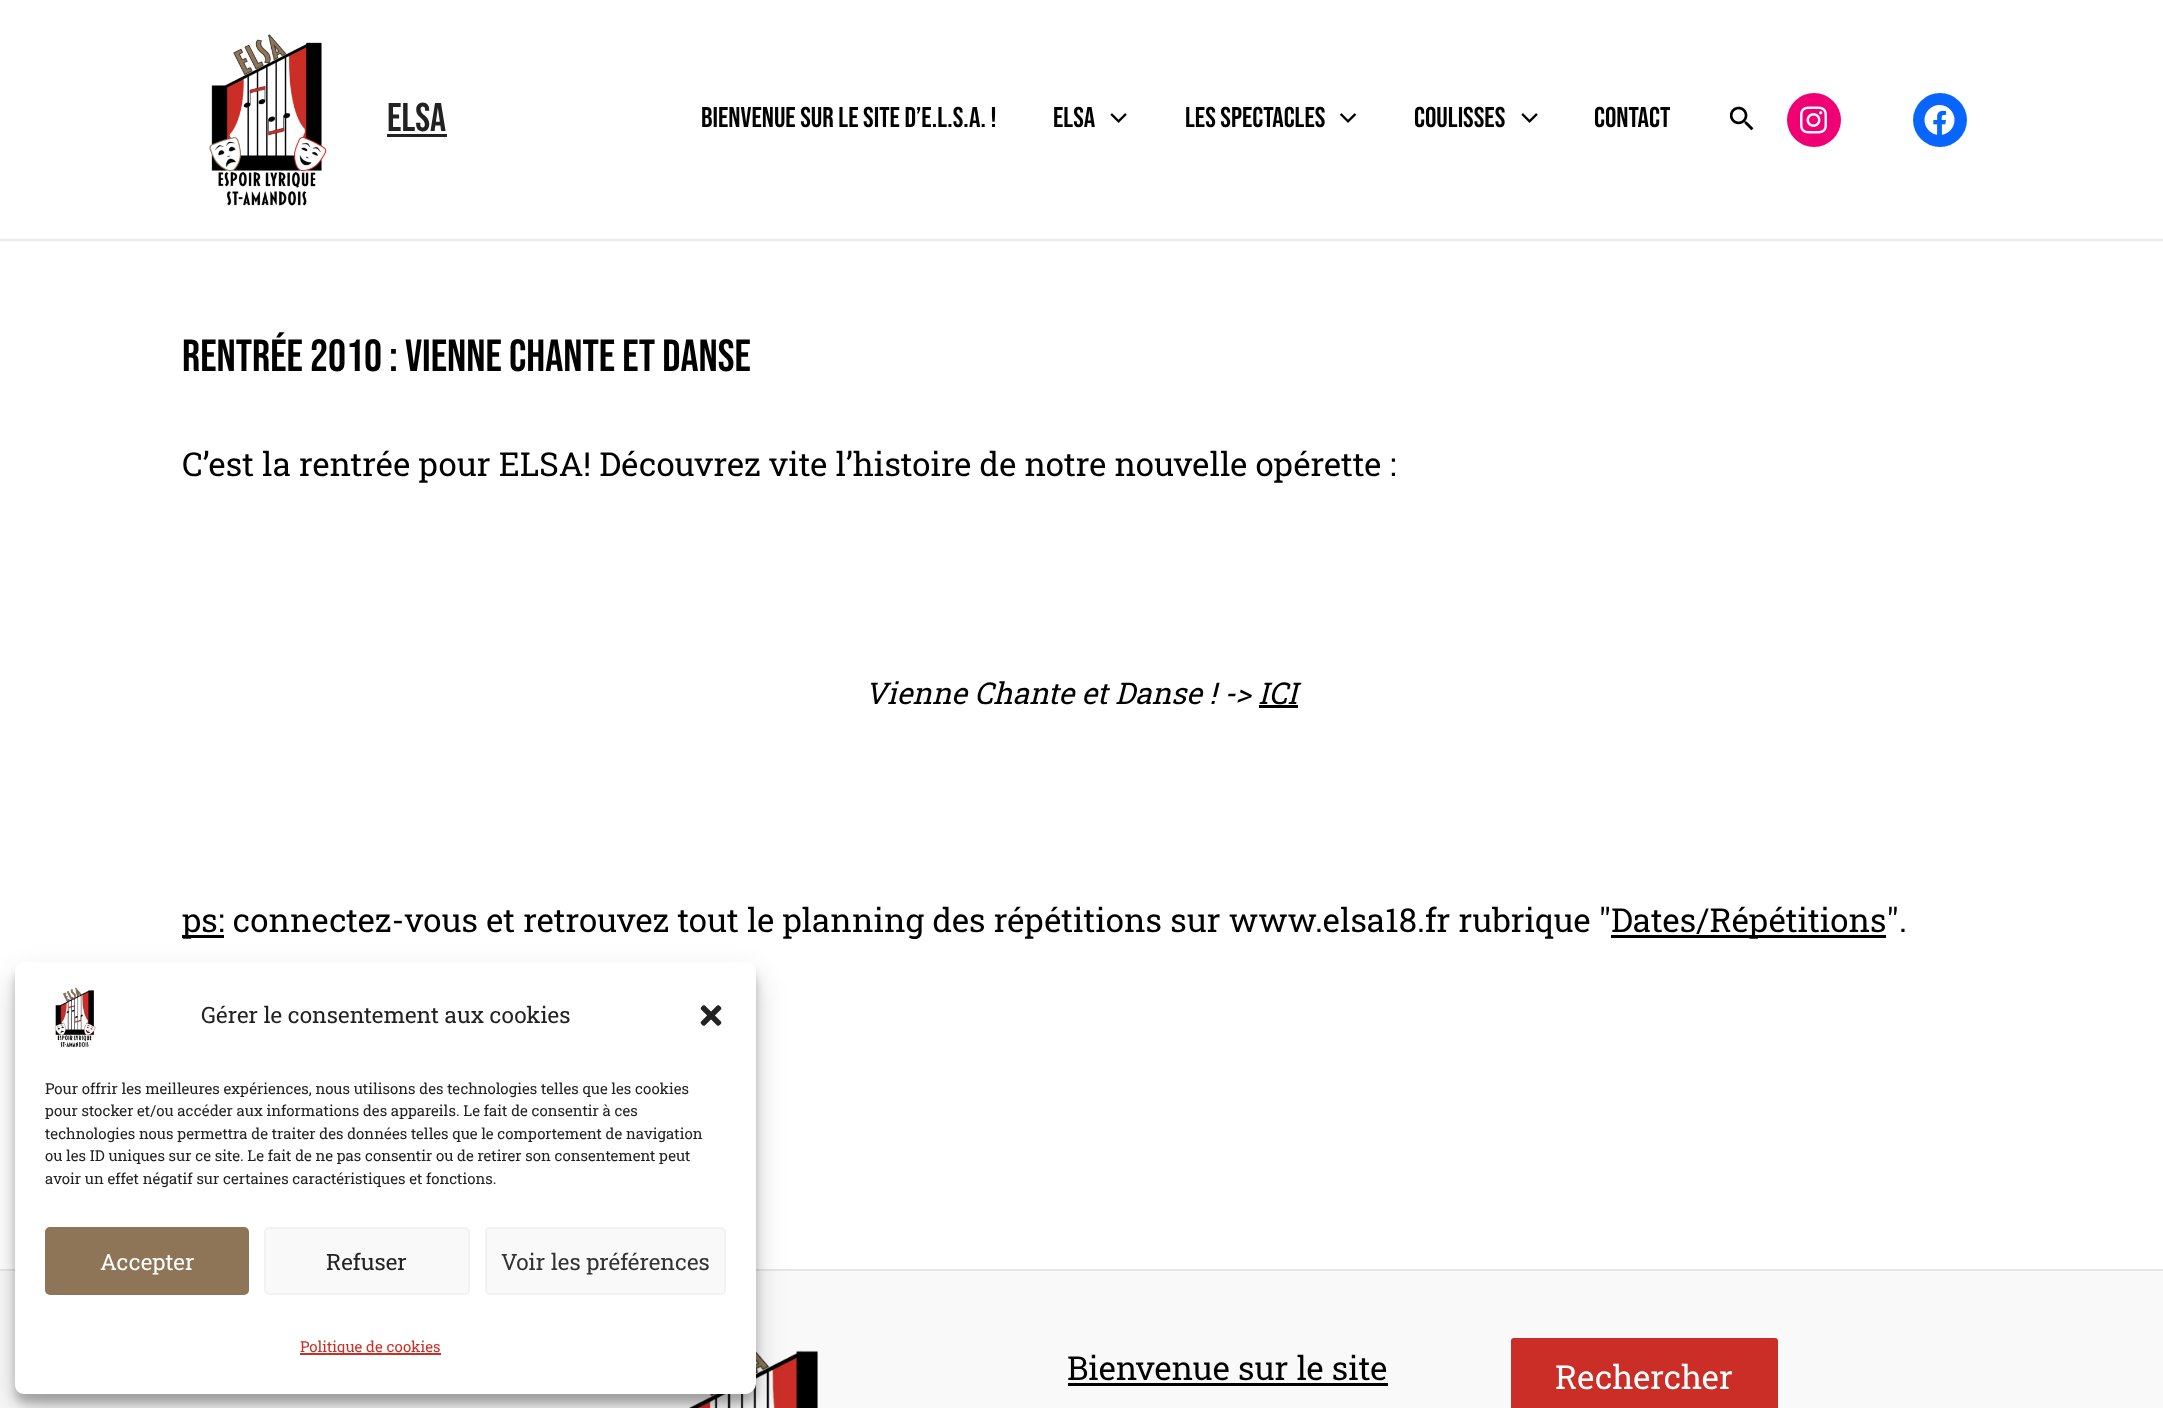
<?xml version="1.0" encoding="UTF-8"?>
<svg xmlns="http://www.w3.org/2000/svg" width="2163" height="1408">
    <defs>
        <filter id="blur1" x="-50%" y="-200%" width="200%" height="500%"><feGaussianBlur stdDeviation="4.5"/></filter>
        <filter id="blur2" x="-50%" y="-200%" width="200%" height="500%"><feGaussianBlur stdDeviation="15"/></filter>
    </defs>
    <rect width="100%" height="100%" fill="#FFFFFF"/>
    <rect x="0" y="239" width="2163" height="2" fill="#EAEAEA"/>
    <image x="209" y="34" width="118" height="172" href="img_01.png"/>
    <text x="387" y="131" font-family="Bebas Neue" font-size="40" fill="#222222">Elsa</text>
    <rect x="387" y="134" width="60" height="3" fill="#222222"/>
    <text x="701" y="127" font-family="Bebas Neue" font-size="28.5" fill="#010101">Bienvenue sur le site d’E.L.S.A. !</text>
    <text x="1053" y="127" font-family="Bebas Neue" font-size="28.5" fill="#010101">ELSA</text>
    <image x="1110" y="113" width="17" height="10" href="img_02.png"/>
    <text x="1185" y="127" font-family="Bebas Neue" font-size="28.5" fill="#010101">Les Spectacles</text>
    <image x="1340" y="113" width="17" height="10" href="img_03.png"/>
    <text x="1414" y="127" font-family="Bebas Neue" font-size="28.5" fill="#010101">Coulisses</text>
    <image x="1521" y="113" width="17" height="10" href="img_02.png"/>
    <text x="1594" y="127" font-family="Bebas Neue" font-size="28.5" fill="#010101">Contact</text>
    <image x="1730" y="106" width="24" height="25" href="img_04.png"/>
    <circle cx="1814" cy="120" r="27" fill="#F00075"/>
    <image x="1800" y="106" width="27" height="28" href="img_05.png"/>
    <circle cx="1940" cy="120" r="27" fill="#0866FF"/>
    <image x="1924" y="105" width="31" height="30" href="img_06.png"/>
    <text x="182" y="371" font-family="Bebas Neue" font-size="45" fill="#010101">Rentrée 2010 : Vienne Chante et Danse</text>
    <text x="182" y="476" font-family="Roboto Slab" font-size="33" fill="#010101">C’est la rentrée pour ELSA! Découvrez vite l’histoire de notre nouvelle opérette :</text>
    <text x="865" y="704" font-family="Roboto Slab" font-size="30" font-style="italic" fill="#010101">Vienne Chante et Danse ! -&gt; ICI</text>
    <rect x="1259" y="705" width="39" height="3" fill="#000000"/>
    <rect x="182" y="935" width="42" height="3" fill="#000000"/>
    <text x="182" y="932" font-family="Roboto Slab" font-size="33" fill="#010101">ps: connectez-vous et retrouvez tout le planning des répétitions sur www.elsa18.fr rubrique "</text>
    <rect x="1611" y="935" width="275" height="3" fill="#000000"/>
    <text x="1611" y="932" font-family="Roboto Slab" font-size="33" fill="#010101">Dates/Répétitions".</text>
    <rect x="0" y="1271" width="2163" height="137" fill="#F9F9F9"/>
    <rect x="0" y="1269" width="2163" height="2" fill="#E6E6E6"/>
    <image x="689" y="1350" width="129" height="58" href="img_07.png"/>
    <text x="1067" y="1380" font-family="Roboto Slab" font-size="33" fill="#010101">Bienvenue sur le site</text>
    <rect x="1068" y="1383" width="320" height="3" fill="#000000"/>
    <rect x="1511" y="1338" width="267" height="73" rx="3" fill="#CB2E26"/>
    <text x="1555" y="1389" font-family="Roboto Slab" font-size="33" fill="#FFFFFF">Rechercher</text>
    <rect x="15" y="971" width="741" height="432" rx="11" fill="#000000" fill-opacity="0.23" filter="url(#blur1)"/>
    <rect x="15" y="977" width="741" height="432" rx="11" fill="#000000" fill-opacity="0.19" filter="url(#blur2)"/>
    <path d="M 24 962 H 747 C 752 962 756 966 756 971 V 1383 C 756 1389 751 1394 745 1394 H 24 C 19 1394 15 1390 15 1385 V 971 C 15 966 19 962 24 962 Z" fill="#FFFFFF"/>
    <image x="54" y="987" width="42" height="60" href="img_08.png"/>
    <text x="201" y="1023" font-family="Roboto Slab" font-size="22.5" fill="#222222">Gérer le consentement aux cookies</text>
    <image x="700" y="1005" width="22" height="21" href="img_09.png"/>
    <text font-family="Roboto Slab" font-size="15" fill="#222222">
        <tspan x="45" y="1094">Pour offrir les meilleures expériences, nous utilisons des technologies telles que les cookies</tspan>
        <tspan x="45" y="1116">pour stocker et/ou accéder aux informations des appareils. Le fait de consentir à ces</tspan>
        <tspan x="45" y="1139">technologies nous permettra de traiter des données telles que le comportement de navigation</tspan>
        <tspan x="45" y="1161">ou les ID uniques sur ce site. Le fait de ne pas consentir ou de retirer son consentement peut</tspan>
        <tspan x="45" y="1184">avoir un effet négatif sur certaines caractéristiques et fonctions.</tspan>
    </text>
    <rect x="46" y="1228" width="202" height="66" rx="4" fill="#8E7557" stroke="#8E7557" stroke-width="2"/>
    <text x="100" y="1270" font-family="Roboto Slab" font-size="22.5" fill="#FFFFFF">Accepter</text>
    <rect x="265" y="1228" width="204" height="66" rx="4" fill="#F9F9F9" stroke="#F2F2F2" stroke-width="2"/>
    <text x="326" y="1270" font-family="Roboto Slab" font-size="22.5" fill="#222222">Refuser</text>
    <rect x="486" y="1228" width="239" height="66" rx="4" fill="#F9F9F9" stroke="#F2F2F2" stroke-width="2"/>
    <text x="501" y="1270" font-family="Roboto Slab" font-size="22.5" fill="#333333">Voir les préférences</text>
    <rect x="300" y="1353" width="141" height="2" fill="#CB2E25"/>
    <text x="300" y="1352" font-family="Roboto Slab" font-size="15" fill="#CB2E25">Politique de cookies</text>
</svg>
